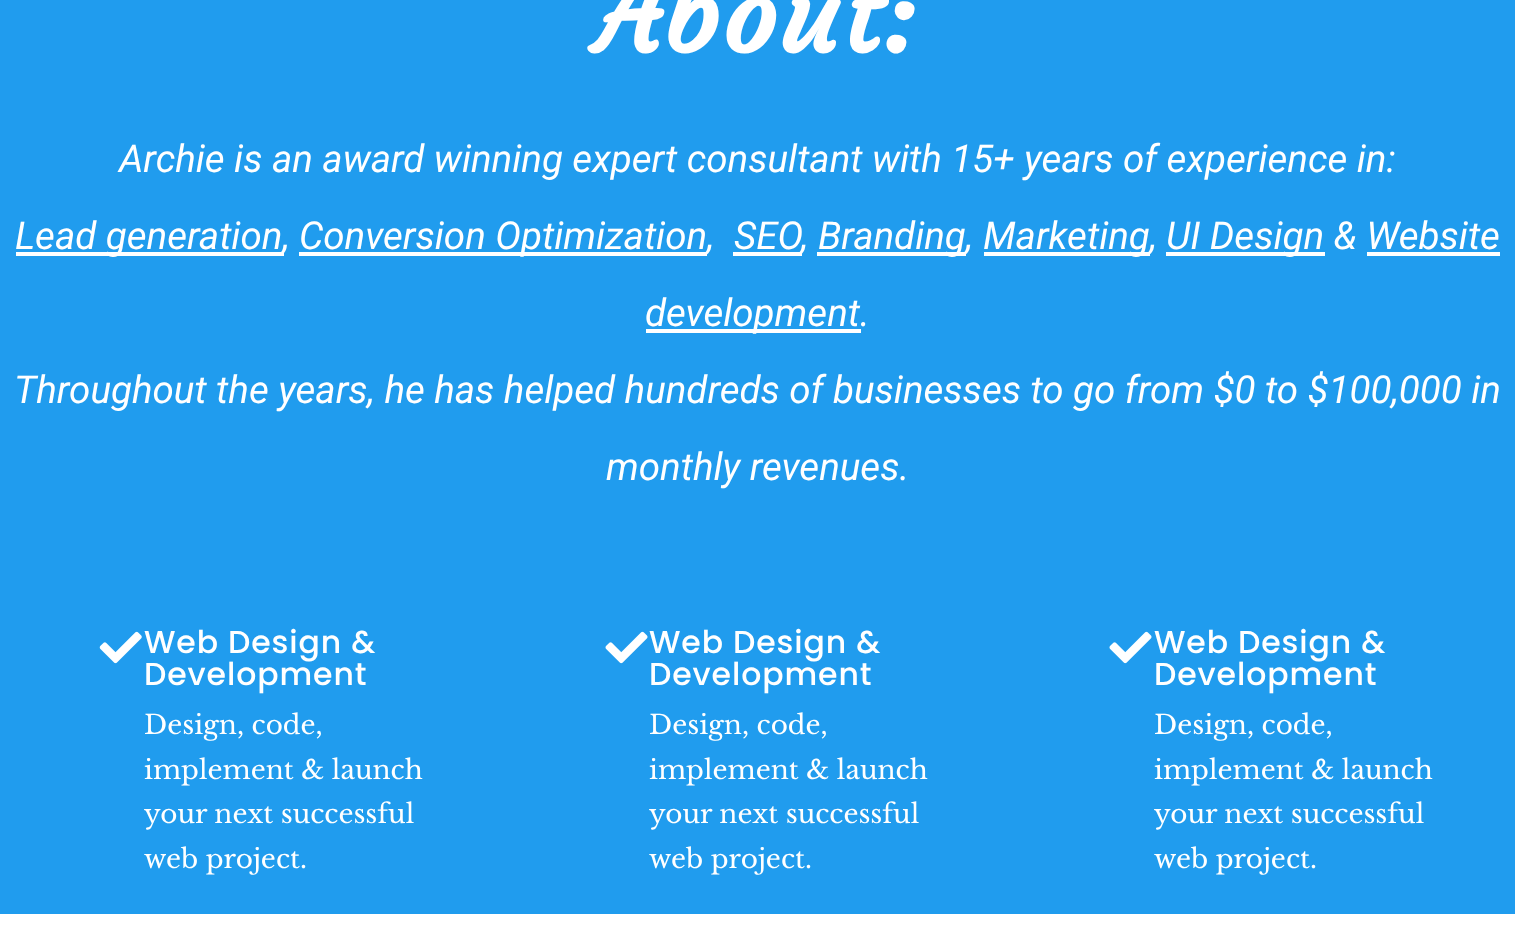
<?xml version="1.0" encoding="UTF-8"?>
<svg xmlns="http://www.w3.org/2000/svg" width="1515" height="949">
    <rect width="100%" height="100%" fill="#FFFFFF"/>
    <rect x="0" y="0" width="1515" height="914" fill="#209CEE"/>
    <text x="596" y="53" font-family="Courgette" font-size="105" font-weight="700" letter-spacing="3.5" fill="#FFFFFF">About:</text>
    <text x="119" y="172" font-family="Roboto" font-size="38.5" font-style="italic" fill="#FFFFFF">Archie is an award winning expert consultant with 15+ years of experience in:</text>
    <rect x="16" y="252" width="268" height="4" fill="#FFFFFF"/>
    <text x="15" y="249" font-family="Roboto" font-size="38.5" font-style="italic" fill="#FFFFFF">Lead generation,</text>
    <rect x="299" y="252" width="408" height="4" fill="#FFFFFF"/>
    <text x="299" y="249" font-family="Roboto" font-size="38.5" font-style="italic" fill="#FFFFFF">Conversion Optimization,</text>
    <text x="734" y="249" font-family="Roboto" font-size="38.5" font-style="italic" fill="#FFFFFF">SEO</text>
    <rect x="733" y="252" width="69" height="4" fill="#FFFFFF"/>
    <text x="801" y="249" font-family="Roboto" font-size="38.5" font-style="italic" fill="#FFFFFF">,</text>
    <rect x="817" y="252" width="149" height="4" fill="#FFFFFF"/>
    <text x="818" y="249" font-family="Roboto" font-size="38.5" font-style="italic" fill="#FFFFFF">Branding,</text>
    <rect x="984" y="252" width="166" height="4" fill="#FFFFFF"/>
    <text x="983" y="249" font-family="Roboto" font-size="38.5" font-style="italic" fill="#FFFFFF">Marketing,</text>
    <rect x="1166" y="252" width="159" height="4" fill="#FFFFFF"/>
    <text x="1166" y="249" font-family="Roboto" font-size="38.5" font-style="italic" fill="#FFFFFF">UI Design &amp; Website</text>
    <rect x="646" y="329" width="215" height="4" fill="#FFFFFF"/>
    <text x="645" y="326" font-family="Roboto" font-size="38.5" font-style="italic" fill="#FFFFFF">development.</text>
    <rect x="1367" y="252" width="133" height="4" fill="#FFFFFF"/>
    <text x="14" y="403" font-family="Roboto" font-size="38.5" font-style="italic" fill="#FFFFFF">Throughout the years, he has helped hundreds of businesses to go from $0 to $100,000 in</text>
    <text x="606" y="480" font-family="Roboto" font-size="38.5" font-style="italic" fill="#FFFFFF">monthly revenues.</text>
    <image x="99" y="631" width="43" height="33" href="img_01.png"/>
    <text font-family="Poppins" font-size="31.5" font-weight="500" letter-spacing="0.9" fill="#FFFFFF">
        <tspan x="144" y="653">Web Design &amp;</tspan>
        <tspan x="144" y="685">Development</tspan>
    </text>
    <text font-family="Libre Baskerville" font-size="26.25" fill="#FFFFFF">
        <tspan x="144" y="734">Design, code,</tspan>
        <tspan x="144" y="779">implement &amp; launch</tspan>
        <tspan x="144" y="823">your next successful</tspan>
        <tspan x="144" y="868">web project.</tspan>
    </text>
    <image x="605" y="631" width="43" height="33" href="img_02.png"/>
    <text font-family="Poppins" font-size="31.5" font-weight="500" letter-spacing="0.9" fill="#FFFFFF">
        <tspan x="649" y="653">Web Design &amp;</tspan>
        <tspan x="649" y="685">Development</tspan>
    </text>
    <text font-family="Libre Baskerville" font-size="26.25" fill="#FFFFFF">
        <tspan x="649" y="734">Design, code,</tspan>
        <tspan x="649" y="779">implement &amp; launch</tspan>
        <tspan x="649" y="823">your next successful</tspan>
        <tspan x="649" y="868">web project.</tspan>
    </text>
    <image x="1109" y="631" width="43" height="33" href="img_02.png"/>
    <text font-family="Poppins" font-size="31.5" font-weight="500" letter-spacing="0.9" fill="#FFFFFF">
        <tspan x="1154" y="653">Web Design &amp;</tspan>
        <tspan x="1154" y="685">Development</tspan>
    </text>
    <text font-family="Libre Baskerville" font-size="26.25" fill="#FFFFFF">
        <tspan x="1154" y="734">Design, code,</tspan>
        <tspan x="1154" y="779">implement &amp; launch</tspan>
        <tspan x="1154" y="823">your next successful</tspan>
        <tspan x="1154" y="868">web project.</tspan>
    </text>
</svg>
